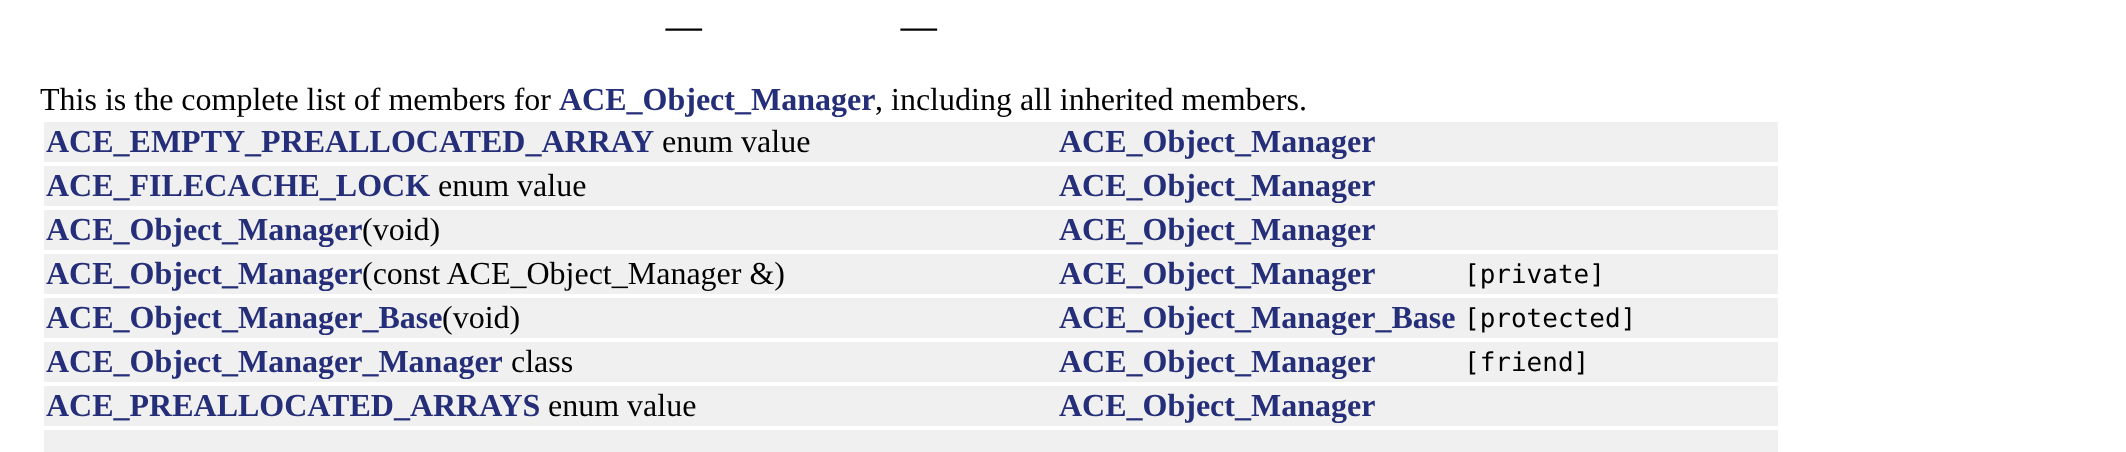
<?xml version="1.0" encoding="UTF-8"?>
<svg xmlns="http://www.w3.org/2000/svg" width="2126" height="452">
    <rect width="100%" height="100%" fill="#FFFFFF"/>
    <text x="666" y="23" font-family="Liberation Sans" font-size="64" font-weight="700" fill="#000000">_</text>
    <text x="901" y="23" font-family="Liberation Sans" font-size="64" font-weight="700" fill="#000000">_</text>
    <text x="40" y="110" font-family="Liberation Serif" font-size="32" fill="#000000">This is the complete list of members for</text>
    <text x="559" y="110" font-family="Liberation Serif" font-size="32" font-weight="700" fill="#252E78">ACE_Object_Manager</text>
    <text x="875" y="110" font-family="Liberation Serif" font-size="32" fill="#000000">, including all inherited members.</text>
    <rect x="44" y="122" width="1734" height="40" fill="#F0F0F0"/>
    <text x="46" y="152" font-family="Liberation Serif" font-size="32" font-weight="700" fill="#252E78">ACE_EMPTY_PREALLOCATED_ARRAY</text>
    <text x="662" y="152" font-family="Liberation Serif" font-size="32" fill="#000000">enum value</text>
    <text x="1059" y="152" font-family="Liberation Serif" font-size="32" font-weight="700" fill="#252E78">ACE_Object_Manager</text>
    <rect x="44" y="166" width="1734" height="40" fill="#F0F0F0"/>
    <text x="46" y="196" font-family="Liberation Serif" font-size="32" font-weight="700" fill="#252E78">ACE_FILECACHE_LOCK</text>
    <text x="438" y="196" font-family="Liberation Serif" font-size="32" fill="#000000">enum value</text>
    <text x="1059" y="196" font-family="Liberation Serif" font-size="32" font-weight="700" fill="#252E78">ACE_Object_Manager</text>
    <rect x="44" y="210" width="1734" height="40" fill="#F0F0F0"/>
    <text x="46" y="240" font-family="Liberation Serif" font-size="32" font-weight="700" fill="#252E78">ACE_Object_Manager</text>
    <text x="362" y="240" font-family="Liberation Serif" font-size="32" fill="#000000">(void)</text>
    <text x="1059" y="240" font-family="Liberation Serif" font-size="32" font-weight="700" fill="#252E78">ACE_Object_Manager</text>
    <rect x="44" y="254" width="1734" height="40" fill="#F0F0F0"/>
    <text x="46" y="284" font-family="Liberation Serif" font-size="32" font-weight="700" fill="#252E78">ACE_Object_Manager</text>
    <text x="362" y="284" font-family="Liberation Serif" font-size="32" fill="#000000">(const ACE_Object_Manager &amp;)</text>
    <text x="1059" y="284" font-family="Liberation Serif" font-size="32" font-weight="700" fill="#252E78">ACE_Object_Manager</text>
    <text x="1464" y="283" font-family="DejaVu Sans Mono" font-size="26" fill="#000000">[private]</text>
    <rect x="44" y="298" width="1734" height="40" fill="#F0F0F0"/>
    <text x="46" y="328" font-family="Liberation Serif" font-size="32" font-weight="700" fill="#252E78">ACE_Object_Manager_Base</text>
    <text x="442" y="328" font-family="Liberation Serif" font-size="32" fill="#000000">(void)</text>
    <text x="1059" y="328" font-family="Liberation Serif" font-size="32" font-weight="700" fill="#252E78">ACE_Object_Manager_Base</text>
    <text x="1464" y="327" font-family="DejaVu Sans Mono" font-size="26" fill="#000000">[protected]</text>
    <rect x="44" y="342" width="1734" height="40" fill="#F0F0F0"/>
    <text x="46" y="372" font-family="Liberation Serif" font-size="32" font-weight="700" fill="#252E78">ACE_Object_Manager_Manager</text>
    <text x="511" y="372" font-family="Liberation Serif" font-size="32" fill="#000000">class</text>
    <text x="1059" y="372" font-family="Liberation Serif" font-size="32" font-weight="700" fill="#252E78">ACE_Object_Manager</text>
    <text x="1464" y="371" font-family="DejaVu Sans Mono" font-size="26" fill="#000000">[friend]</text>
    <rect x="44" y="386" width="1734" height="40" fill="#F0F0F0"/>
    <text x="46" y="416" font-family="Liberation Serif" font-size="32" font-weight="700" fill="#252E78">ACE_PREALLOCATED_ARRAYS</text>
    <text x="548" y="416" font-family="Liberation Serif" font-size="32" fill="#000000">enum value</text>
    <text x="1059" y="416" font-family="Liberation Serif" font-size="32" font-weight="700" fill="#252E78">ACE_Object_Manager</text>
    <rect x="44" y="430" width="1734" height="22" fill="#F0F0F0"/>
</svg>
